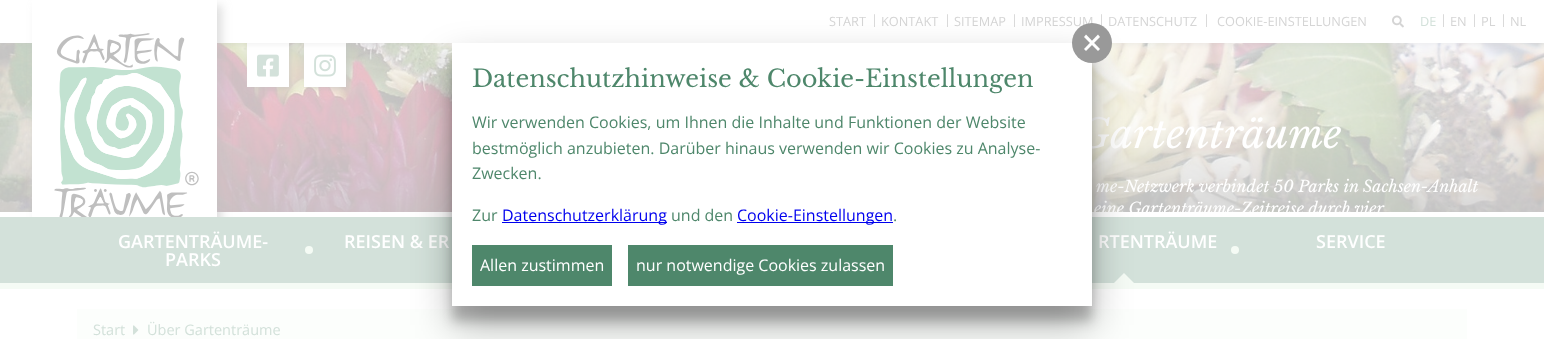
<?xml version="1.0" encoding="UTF-8"?>
<svg xmlns="http://www.w3.org/2000/svg" width="1544" height="339">
    <defs>
        <filter id="blur1" x="-50%" y="-200%" width="200%" height="500%"><feGaussianBlur stdDeviation="2.5"/></filter>
        <filter id="blur2" x="-50%" y="-200%" width="200%" height="500%"><feGaussianBlur stdDeviation="5"/></filter>
        <clipPath id="clip1"><rect x="0" y="43" width="1544" height="169"/></clipPath>
        <filter id="blur3" x="-50%" y="-200%" width="200%" height="500%"><feGaussianBlur stdDeviation="6"/></filter>
        <filter id="blur4" x="-50%" y="-200%" width="200%" height="500%"><feGaussianBlur stdDeviation="19"/></filter>
    </defs>
    <rect width="100%" height="100%" fill="#FFFFFF"/>
    <image x="0" y="43" width="1544" height="169" href="img_05.png"/>
    <rect x="249" y="20" width="42" height="69" fill="#BFBFBF" fill-opacity="0.5" filter="url(#blur1)"/>
    <rect x="306" y="20" width="42" height="69" fill="#BFBFBF" fill-opacity="0.5" filter="url(#blur1)"/>
    <rect x="247" y="43" width="42" height="44" fill="#FFFFFF"/>
    <rect x="304" y="43" width="42" height="44" fill="#FFFFFF"/>
    <rect x="2" y="2" width="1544" height="43" fill="#BFBFBF" fill-opacity="0.2" filter="url(#blur1)"/>
    <rect x="0" y="0" width="1544" height="43" fill="#FFFFFF"/>
    <rect x="37" y="5" width="185" height="245" fill="#BFBFBF" fill-opacity="0.5" filter="url(#blur2)"/>
    <rect x="32" y="0" width="185" height="217" fill="#FFFFFF"/>
    <image x="54" y="33" width="145" height="184" href="img_01.png"/>
    <image x="257" y="54" width="22" height="23" href="img_02.png"/>
    <image x="314" y="54" width="22" height="23" href="img_03.png"/>
    <text x="829" y="26" font-family="Open Sans" font-size="12.75" fill="#D5D5D5">START</text>
    <text x="871" y="24" font-family="Open Sans" font-size="12.75" fill="#D5D5D5">|</text>
    <text x="881" y="26" font-family="Open Sans" font-size="12.75" fill="#D5D5D5">KONTAKT</text>
    <text x="944" y="24" font-family="Open Sans" font-size="12.75" fill="#D5D5D5">|</text>
    <text x="954" y="26" font-family="Open Sans" font-size="12.75" fill="#D5D5D5">SITEMAP</text>
    <text x="1011" y="24" font-family="Open Sans" font-size="12.75" fill="#D5D5D5">|</text>
    <text x="1021" y="26" font-family="Open Sans" font-size="12.75" fill="#D5D5D5">IMPRESSUM</text>
    <text x="1098" y="24" font-family="Open Sans" font-size="12.75" fill="#D5D5D5">|</text>
    <text x="1108" y="26" font-family="Open Sans" font-size="12.75" fill="#D5D5D5">DATENSCHUTZ</text>
    <text x="1203" y="24" font-family="Open Sans" font-size="12.75" fill="#D5D5D5">|</text>
    <text x="1217" y="26" font-family="Open Sans" font-size="12.75" fill="#D5D5D5">COOKIE-EINSTELLUNGEN</text>
    <image x="1392" y="15" width="12" height="13" href="img_04.png"/>
    <text x="1420" y="26" font-family="Open Sans" font-size="12.75" fill="#D3E1DA">DE</text>
    <text x="1440" y="24" font-family="Open Sans" font-size="12.75" fill="#D5D5D5">|</text>
    <text x="1450" y="26" font-family="Open Sans" font-size="12.75" fill="#D5D5D5">EN</text>
    <text x="1471" y="24" font-family="Open Sans" font-size="12.75" fill="#D5D5D5">|</text>
    <text x="1481" y="26" font-family="Open Sans" font-size="12.75" fill="#D5D5D5">PL</text>
    <text x="1500" y="24" font-family="Open Sans" font-size="12.75" fill="#D5D5D5">|</text>
    <text x="1510" y="26" font-family="Open Sans" font-size="12.75" fill="#D5D5D5">NL</text>
    <text x="1078" y="148" font-family="Libre Baskerville" font-size="40" font-style="italic" fill="#FFFFFF">Gartenträume</text>
    <text x="1096" y="192" font-family="Libre Baskerville" font-size="16" font-style="italic" fill="#FFFFFF">me-Netzwerk verbindet 50 Parks in Sachsen-Anhalt</text>
    <g clip-path="url(#clip1)">
        <text x="1094" y="214" font-family="Libre Baskerville" font-size="16" font-style="italic" fill="#FFFFFF">eine Gartenträume-Zeitreise durch vier</text>
    </g>
    <rect x="0" y="217" width="1544" height="66" fill="#D3E1DA"/>
    <rect x="0" y="283" width="1544" height="6" fill="#F5FBF5"/>
    <text x="118" y="248" font-family="Open Sans" font-size="18" font-weight="600" fill="#FFFFFF">GARTENTRÄUME-</text>
    <circle cx="309" cy="250" r="4" fill="#F5FBF5"/>
    <text x="165" y="266" font-family="Open Sans" font-size="18" font-weight="600" fill="#FFFFFF">PARKS</text>
    <text x="344" y="248" font-family="Open Sans" font-size="18" font-weight="600" fill="#FFFFFF">REISEN &amp; ER</text>
    <text x="1098" y="248" font-family="Open Sans" font-size="18" font-weight="600" fill="#FFFFFF">RTENTRÄUME</text>
    <circle cx="1235" cy="250" r="4" fill="#F5FBF5"/>
    <path d="M 1134 283 H 1114 L 1124 273 Z" fill="#F5FBF5"/>
    <text x="1316" y="248" font-family="Open Sans" font-size="18" font-weight="600" fill="#FFFFFF">SERVICE</text>
    <rect x="77" y="309" width="1390" height="30" fill="#FCFEFC"/>
    <rect x="452" y="58" width="640" height="263" fill="#000000" fill-opacity="0.22" filter="url(#blur3)"/>
    <rect x="452" y="62" width="640" height="263" fill="#000000" fill-opacity="0.3" filter="url(#blur4)"/>
    <rect x="452" y="43" width="640" height="263" fill="#FFFFFF"/>
    <circle cx="1092" cy="43" r="20" fill="#999999"/>
    <path d="M 1086 34.5 L 1100 49 L 1098 51 L 1084 37 Z" fill="#FFFFFF"/>
    <path d="M 1084 49 L 1098 34.5 L 1100 37 L 1086 51 Z" fill="#FFFFFF"/>
    <text x="472" y="87" font-family="Libre Baskerville" font-size="24" fill="#4E876B">Datenschutzhinweise &amp; Cookie-Einstellungen</text>
    <text font-family="Open Sans" font-size="16" fill="#4E876B">
        <tspan x="472" y="128">Wir verwenden Cookies, um Ihnen die Inhalte und Funktionen der Website</tspan>
        <tspan x="472" y="154">bestmöglich anzubieten. Darüber hinaus verwenden wir Cookies zu Analyse-</tspan>
        <tspan x="472" y="179">Zwecken.</tspan>
    </text>
    <text x="472" y="221" font-family="Open Sans" font-size="16" fill="#4E876B">Zur</text>
    <rect x="502" y="222" width="165" height="1" fill="#0000EE"/>
    <text x="502" y="221" font-family="Open Sans" font-size="16" fill="#0000EE">Datenschutzerklärung</text>
    <text x="671" y="221" font-family="Open Sans" font-size="16" fill="#4E876B">und den</text>
    <rect x="737" y="222" width="156" height="1" fill="#0000EE"/>
    <text x="737" y="221" font-family="Open Sans" font-size="16" fill="#0000EE">Cookie-Einstellungen</text>
    <text x="893" y="221" font-family="Open Sans" font-size="16" fill="#4E876B">.</text>
    <rect x="472" y="245" width="140" height="41" fill="#4E876B"/>
    <text x="480" y="271" font-family="Open Sans" font-size="16" fill="#FFFFFF">Allen zustimmen</text>
    <rect x="628" y="245" width="265" height="41" fill="#4E876B"/>
    <text x="636" y="271" font-family="Open Sans" font-size="16" fill="#FFFFFF">nur notwendige Cookies zulassen</text>
    <text x="93" y="335" font-family="Open Sans" font-size="14.5" fill="#D3E1DA">Start</text>
    <image x="133" y="325" width="6" height="10" href="img_06.png"/>
    <text x="147" y="335" font-family="Open Sans" font-size="14.5" fill="#D3E1DA">Über Gartenträume</text>
</svg>
